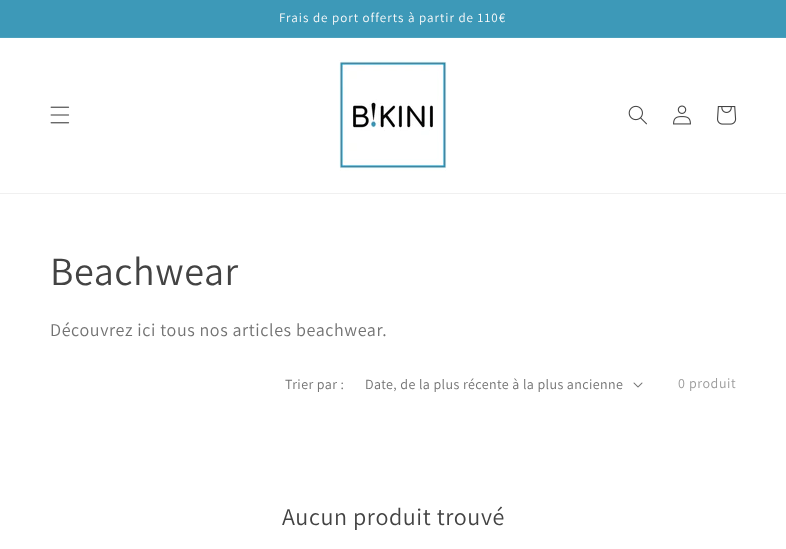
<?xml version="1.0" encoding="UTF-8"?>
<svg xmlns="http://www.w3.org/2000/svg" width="786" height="549">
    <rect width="100%" height="100%" fill="#FFFFFF"/>
    <rect x="0" y="0" width="786" height="37" fill="#3D99B8"/>
    <rect x="0" y="37" width="786" height="1" fill="#4CA1BD"/>
    <text x="279" y="22" font-family="Assistant" font-size="13" letter-spacing="1" fill="#FAFAFA">Frais de port offerts à partir de 110€</text>
    <rect x="0" y="193" width="786" height="1" fill="#F0F0F0"/>
    <image x="50" y="106" width="20" height="18" href="img_01.png"/>
    <image x="339" y="60" width="108" height="111" href="img_02.png"/>
    <image x="628" y="105" width="19" height="20" href="img_03.png"/>
    <image x="673" y="105" width="18" height="20" href="img_04.png"/>
    <image x="717" y="106" width="20" height="19" href="img_05.png"/>
    <text x="50" y="285" font-family="Assistant" font-size="40" letter-spacing="0.6" fill="#434343">Beachwear</text>
    <text x="50" y="336" font-family="Assistant" font-size="18" letter-spacing="0.6" fill="#727272">Découvrez ici tous nos articles beachwear.</text>
    <text x="285" y="389" font-family="Assistant" font-size="14" letter-spacing="0.4" fill="#727272">Trier par :</text>
    <text x="365" y="389" font-family="Assistant" font-size="14" letter-spacing="0.4" fill="#727272">Date, de la plus récente à la plus ancienne</text>
    <image x="633" y="382" width="10" height="6" href="img_06.png"/>
    <text x="678" y="388" font-family="Assistant" font-size="14" letter-spacing="0.6" fill="#9C9C9C">0 produit</text>
    <text x="282" y="525" font-family="Assistant" font-size="24" letter-spacing="0.6" fill="#434343">Aucun produit trouvé</text>
</svg>
